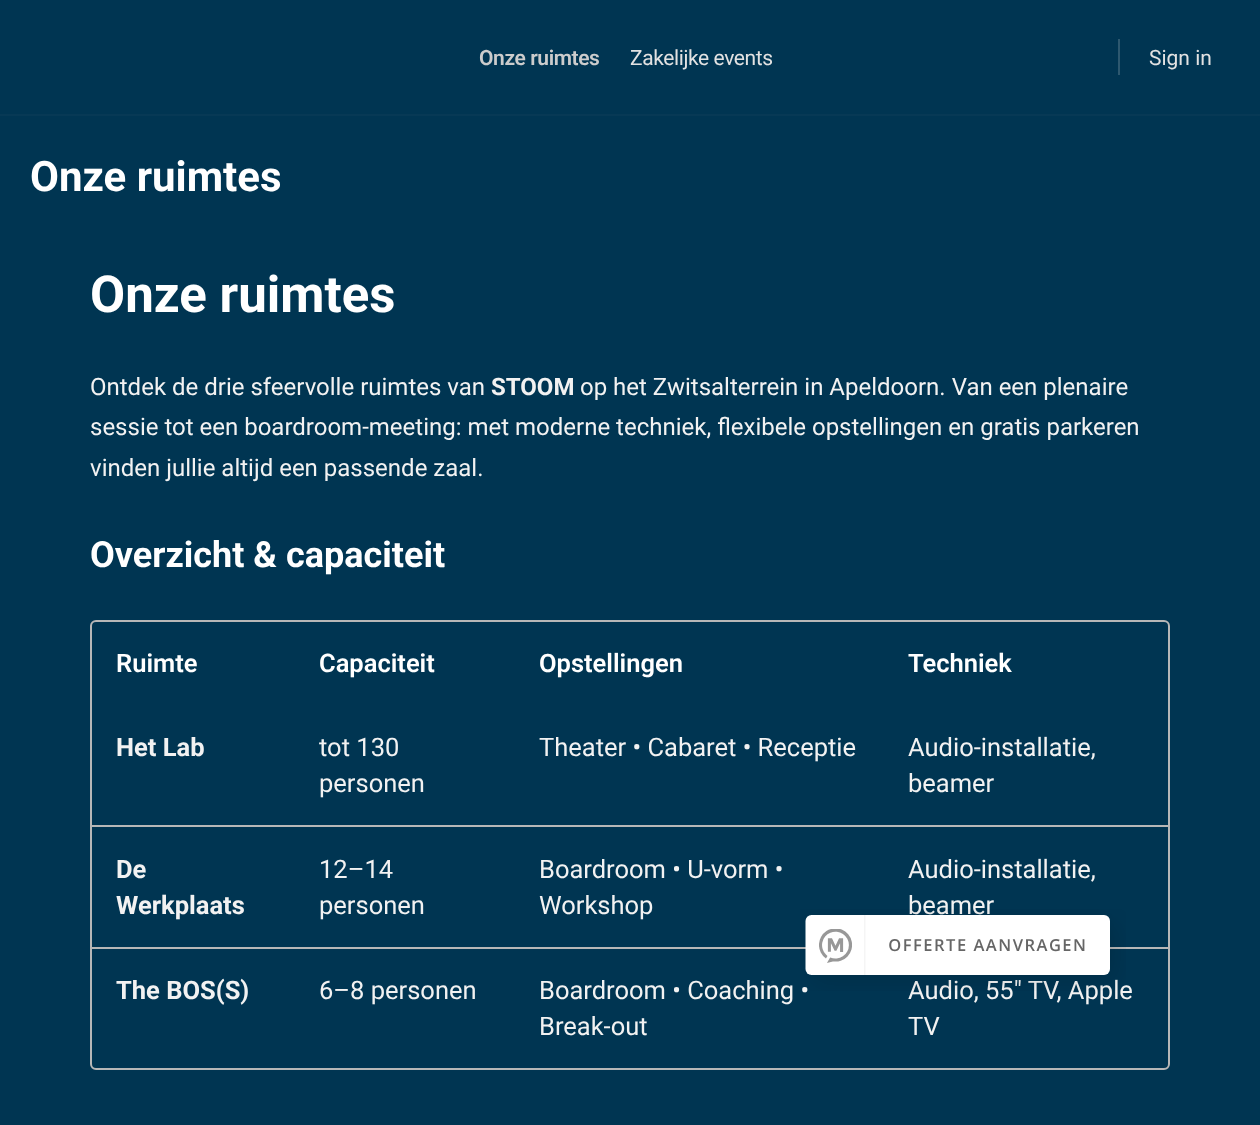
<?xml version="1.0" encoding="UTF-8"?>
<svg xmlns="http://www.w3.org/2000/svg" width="1260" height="1125">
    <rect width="100%" height="100%" fill="#003552"/>
    <rect x="0" y="114" width="1260" height="2" fill="#8B8D9D" fill-opacity="0.05"/>
    <text x="479" y="65" font-family="Roboto" font-size="21" font-weight="600" letter-spacing="-0.4" fill="#CCCCCC">Onze ruimtes</text>
    <text x="630" y="65" font-family="Roboto" font-size="21" letter-spacing="-0.4" fill="#E2E2E2">Zakelijke events</text>
    <rect x="1118" y="39" width="2" height="36" fill="#2D586F"/>
    <text x="1149" y="65" font-family="Roboto" font-size="21" fill="#E2E2E2">Sign in</text>
    <text x="30" y="191" font-family="Roboto" font-size="42" font-weight="700" fill="#FFFFFF">Onze ruimtes</text>
    <text x="90" y="312" font-family="Roboto" font-size="51" font-weight="700" fill="#FFFFFF">Onze ruimtes</text>
    <text x="90" y="395" font-family="Roboto" font-size="24" fill="#F2F2F2">Ontdek de drie sfeervolle ruimtes van</text>
    <text x="491" y="395" font-family="Roboto" font-size="24" font-weight="700" fill="#F2F2F2">STOOM</text>
    <text x="580" y="395" font-family="Roboto" font-size="24" fill="#F2F2F2">op het Zwitsalterrein in Apeldoorn. Van een plenaire</text>
    <text font-family="Roboto" font-size="24" fill="#F2F2F2">
        <tspan x="90" y="435">sessie tot een boardroom-meeting: met moderne techniek, flexibele opstellingen en gratis parkeren</tspan>
        <tspan x="90" y="476">vinden jullie altijd een passende zaal.</tspan>
    </text>
    <text x="90" y="567" font-family="Roboto" font-size="36" font-weight="700" fill="#FFFFFF">Overzicht &amp; capaciteit</text>
    <rect x="91" y="621" width="1078" height="448" rx="5" fill="none" stroke="#B7B7B7" stroke-width="2"/>
    <text x="116" y="672" font-family="Roboto" font-size="25.5" font-weight="600" fill="#FFFFFF">Ruimte</text>
    <text x="319" y="672" font-family="Roboto" font-size="25.5" font-weight="600" fill="#FFFFFF">Capaciteit</text>
    <text x="539" y="672" font-family="Roboto" font-size="25.5" font-weight="600" fill="#FFFFFF">Opstellingen</text>
    <text x="908" y="672" font-family="Roboto" font-size="25.5" font-weight="600" fill="#FFFFFF">Techniek</text>
    <rect x="92" y="825" width="1077" height="2" fill="#B7B7B7"/>
    <text x="116" y="756" font-family="Roboto" font-size="25.5" font-weight="700" fill="#F2F2F2">Het Lab</text>
    <text font-family="Roboto" font-size="25.5" fill="#F2F2F2">
        <tspan x="319" y="756">tot 130</tspan>
        <tspan x="319" y="792">personen</tspan>
    </text>
    <text x="539" y="756" font-family="Roboto" font-size="25.5" fill="#F2F2F2">Theater • Cabaret • Receptie</text>
    <text font-family="Roboto" font-size="25.5" fill="#F2F2F2">
        <tspan x="908" y="756">Audio-installatie,</tspan>
        <tspan x="908" y="792">beamer</tspan>
    </text>
    <rect x="92" y="947" width="714" height="2" fill="#B7B7B7"/>
    <text font-family="Roboto" font-size="25.5" font-weight="700" fill="#F2F2F2">
        <tspan x="116" y="878">De</tspan>
        <tspan x="116" y="914">Werkplaats</tspan>
    </text>
    <text font-family="Roboto" font-size="25.5" fill="#F2F2F2">
        <tspan x="319" y="878">12–14</tspan>
        <tspan x="319" y="914">personen</tspan>
    </text>
    <text font-family="Roboto" font-size="25.5" fill="#F2F2F2">
        <tspan x="539" y="878">Boardroom • U-vorm •</tspan>
        <tspan x="539" y="914">Workshop</tspan>
    </text>
    <rect x="1110" y="947" width="59" height="2" fill="#B7B7B7"/>
    <text font-family="Roboto" font-size="25.5" fill="#F2F2F2">
        <tspan x="908" y="878">Audio-installatie,</tspan>
        <tspan x="908" y="914">beamer</tspan>
    </text>
    <text x="116" y="999" font-family="Roboto" font-size="25.5" font-weight="700" fill="#F2F2F2">The BOS(S)</text>
    <text x="319" y="999" font-family="Roboto" font-size="25.5" fill="#F2F2F2">6–8 personen</text>
    <text font-family="Roboto" font-size="25.5" fill="#F2F2F2">
        <tspan x="539" y="999">Boardroom • Coaching •</tspan>
        <tspan x="539" y="1035">Break-out</tspan>
    </text>
    <text font-family="Roboto" font-size="25.5" fill="#F2F2F2">
        <tspan x="908" y="999">Audio, 55″ TV, Apple</tspan>
        <tspan x="908" y="1035">TV</tspan>
    </text>
    <image x="800" y="909" width="326" height="82" href="img_01.png"/>
</svg>
